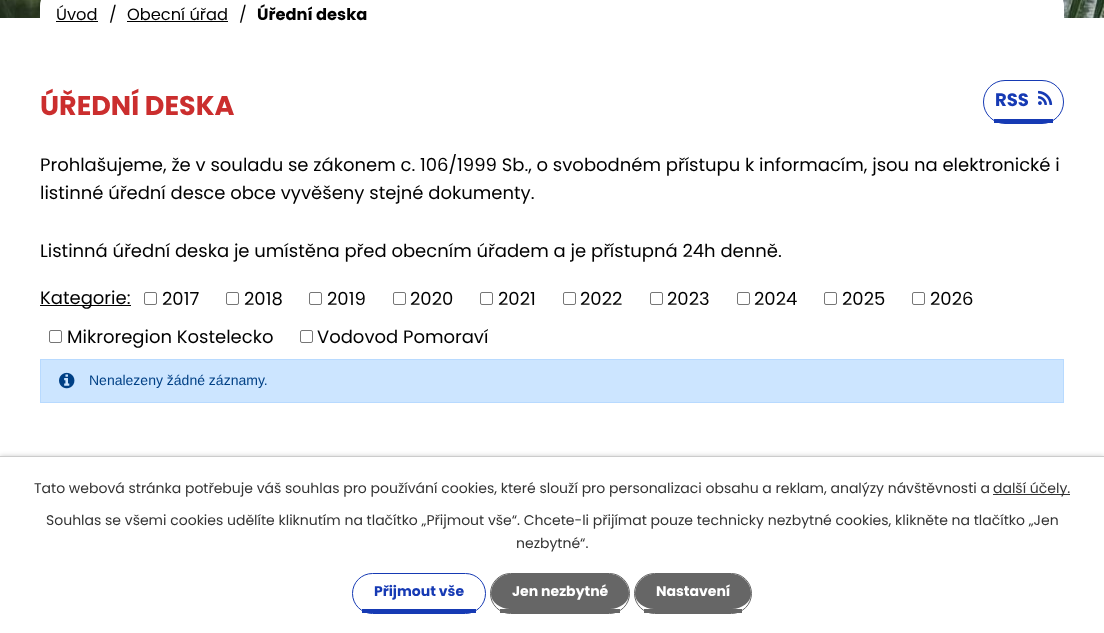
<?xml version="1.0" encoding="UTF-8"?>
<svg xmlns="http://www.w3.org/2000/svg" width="1104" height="633">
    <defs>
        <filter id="blur1" x="-50%" y="-200%" width="200%" height="500%"><feGaussianBlur stdDeviation="2.5"/></filter>
    </defs>
    <rect width="100%" height="100%" fill="#FFFFFF"/>
    <image x="0" y="0" width="1104" height="18" href="img_01.png"/>
    <rect x="40" y="-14" width="1024" height="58" rx="20" fill="#FFFFFF"/>
    <text x="56" y="20" font-family="Poppins" font-size="16.25" fill="#000000">Úvod</text>
    <rect x="56" y="21" width="42" height="1" fill="#000000"/>
    <text x="109" y="20" font-family="Poppins" font-size="16.25" fill="#000000">/</text>
    <text x="127" y="20" font-family="Poppins" font-size="16.25" fill="#000000">Obecní úřad</text>
    <rect x="127" y="21" width="101" height="1" fill="#000000"/>
    <text x="239" y="20" font-family="Poppins" font-size="16.25" fill="#000000">/</text>
    <text x="257" y="20" font-family="Poppins" font-size="16.25" font-weight="700" fill="#000000">Úřední deska</text>
    <text x="40" y="115" font-family="Poppins" font-size="27" font-weight="700" fill="#CB2E2E">ÚŘEDNÍ DESKA</text>
    <rect x="983.5" y="80.5" width="80" height="43" rx="21.5" fill="none" stroke="#163AB4"/>
    <rect x="994" y="119" width="59" height="4" fill="#163AB4"/>
    <text x="995" y="106" font-family="Poppins" font-size="18" font-weight="700" fill="#163AB4">RSS</text>
    <image x="1038" y="90" width="15" height="15" href="img_02.png"/>
    <text font-family="Poppins" font-size="18" fill="#000000">
        <tspan x="40" y="171">Prohlašujeme, že v souladu se zákonem c. 106/1999 Sb., o svobodném přístupu k informacím, jsou na elektronické i</tspan>
        <tspan x="40" y="199">listinné úřední desce obce vyvěšeny stejné dokumenty.</tspan>
    </text>
    <text x="40" y="257" font-family="Poppins" font-size="18" fill="#000000">Listinná úřední deska je umístěna před obecním úřadem a je přístupná 24h denně.</text>
    <rect x="40" y="305" width="91" height="1" fill="#000000"/>
    <text x="40" y="304" font-family="Poppins" font-size="18" fill="#000000">Kategorie:</text>
    <rect x="144.5" y="292.5" width="12" height="12" rx="1.5" fill="none" stroke="#767676"/>
    <text x="162" y="305" font-family="Poppins" font-size="18" fill="#000000">2017</text>
    <rect x="226.5" y="292.5" width="12" height="12" rx="1.5" fill="none" stroke="#767676"/>
    <text x="244" y="305" font-family="Poppins" font-size="18" fill="#000000">2018</text>
    <rect x="309.5" y="292.5" width="12" height="12" rx="1.5" fill="none" stroke="#767676"/>
    <text x="327" y="305" font-family="Poppins" font-size="18" fill="#000000">2019</text>
    <rect x="393.5" y="292.5" width="12" height="12" rx="1.5" fill="none" stroke="#767676"/>
    <text x="410" y="305" font-family="Poppins" font-size="18" fill="#000000">2020</text>
    <rect x="480.5" y="292.5" width="12" height="12" rx="1.5" fill="none" stroke="#767676"/>
    <text x="498" y="305" font-family="Poppins" font-size="18" fill="#000000">2021</text>
    <rect x="563.5" y="292.5" width="12" height="12" rx="1.5" fill="none" stroke="#767676"/>
    <text x="580" y="305" font-family="Poppins" font-size="18" fill="#000000">2022</text>
    <rect x="650.5" y="292.5" width="12" height="12" rx="1.5" fill="none" stroke="#767676"/>
    <text x="667" y="305" font-family="Poppins" font-size="18" fill="#000000">2023</text>
    <rect x="737.5" y="292.5" width="12" height="12" rx="1.5" fill="none" stroke="#767676"/>
    <text x="754" y="305" font-family="Poppins" font-size="18" fill="#000000">2024</text>
    <rect x="824.5" y="292.5" width="12" height="12" rx="1.5" fill="none" stroke="#767676"/>
    <text x="842" y="305" font-family="Poppins" font-size="18" fill="#000000">2025</text>
    <rect x="912.5" y="292.5" width="12" height="12" rx="1.5" fill="none" stroke="#767676"/>
    <text x="930" y="305" font-family="Poppins" font-size="18" fill="#000000">2026</text>
    <rect x="49.5" y="330.5" width="12" height="12" rx="1.5" fill="none" stroke="#767676"/>
    <text x="67" y="343" font-family="Poppins" font-size="18" fill="#000000">Mikroregion Kostelecko</text>
    <rect x="300.5" y="330.5" width="12" height="12" rx="1.5" fill="none" stroke="#767676"/>
    <text x="317" y="343" font-family="Poppins" font-size="18" fill="#000000">Vodovod Pomoraví</text>
    <rect x="40.5" y="359.5" width="1023" height="43" fill="#CCE5FF" stroke="#B8DAFF"/>
    <image x="59" y="372" width="16" height="17" href="img_03.png"/>
    <text x="89" y="385" font-family="Liberation Sans" font-size="14" fill="#004085">Nenalezeny žádné záznamy.</text>
    <rect x="0" y="456" width="1104" height="177" fill="#000000" fill-opacity="0.2" filter="url(#blur1)"/>
    <rect x="0" y="457" width="1104" height="176" fill="#FFFFFF"/>
    <rect x="0" y="456" width="1104" height="1" fill="#CCCCCC"/>
    <text x="34" y="493" font-family="Poppins" font-size="14" fill="#333333">Tato webová stránka potřebuje váš souhlas pro používání cookies, které slouží pro personalizaci obsahu a reklam, analýzy návštěvnosti a</text>
    <rect x="993" y="494" width="77" height="1" fill="#333333"/>
    <text x="993" y="493" font-family="Poppins" font-size="14" fill="#333333">další účely.</text>
    <text x="46" y="525" font-family="Poppins" font-size="14" fill="#333333">Souhlas se všemi cookies udělíte kliknutím na tlačítko „Přijmout vše“. Chcete-li přijímat pouze technicky nezbytné cookies, klikněte na tlačítko „Jen</text>
    <text x="516" y="548" font-family="Poppins" font-size="14" fill="#333333">nezbytné“.</text>
    <rect x="352.5" y="573.5" width="133" height="40" rx="20" fill="none" stroke="#163AB4"/>
    <rect x="362" y="609" width="114" height="4" fill="#163AB4"/>
    <text x="374" y="596" font-family="Poppins" font-size="14" font-weight="700" fill="#163AB4">Přijmout vše</text>
    <path d="M 510 574 H 610 C 620 574 629 583 629 594 C 629 602 620 609 610 609 H 510 C 500 609 491 602 491 594 C 491 583 500 574 510 574 Z" fill="#666666"/>
    <rect x="490.5" y="573.5" width="139" height="40" rx="20" fill="none" stroke="#666666"/>
    <rect x="500" y="609" width="120" height="4" fill="#666666"/>
    <text x="512" y="596" font-family="Poppins" font-size="14" font-weight="700" fill="#FFFFFF">Jen nezbytné</text>
    <path d="M 654 574 H 732 C 742 574 751 583 751 594 C 751 602 742 609 732 609 H 654 C 644 609 635 602 635 594 C 635 583 644 574 654 574 Z" fill="#666666"/>
    <rect x="634.5" y="573.5" width="117" height="40" rx="20" fill="none" stroke="#666666"/>
    <rect x="644" y="609" width="98" height="4" fill="#666666"/>
    <text x="656" y="596" font-family="Poppins" font-size="14" font-weight="700" fill="#FFFFFF">Nastavení</text>
</svg>
